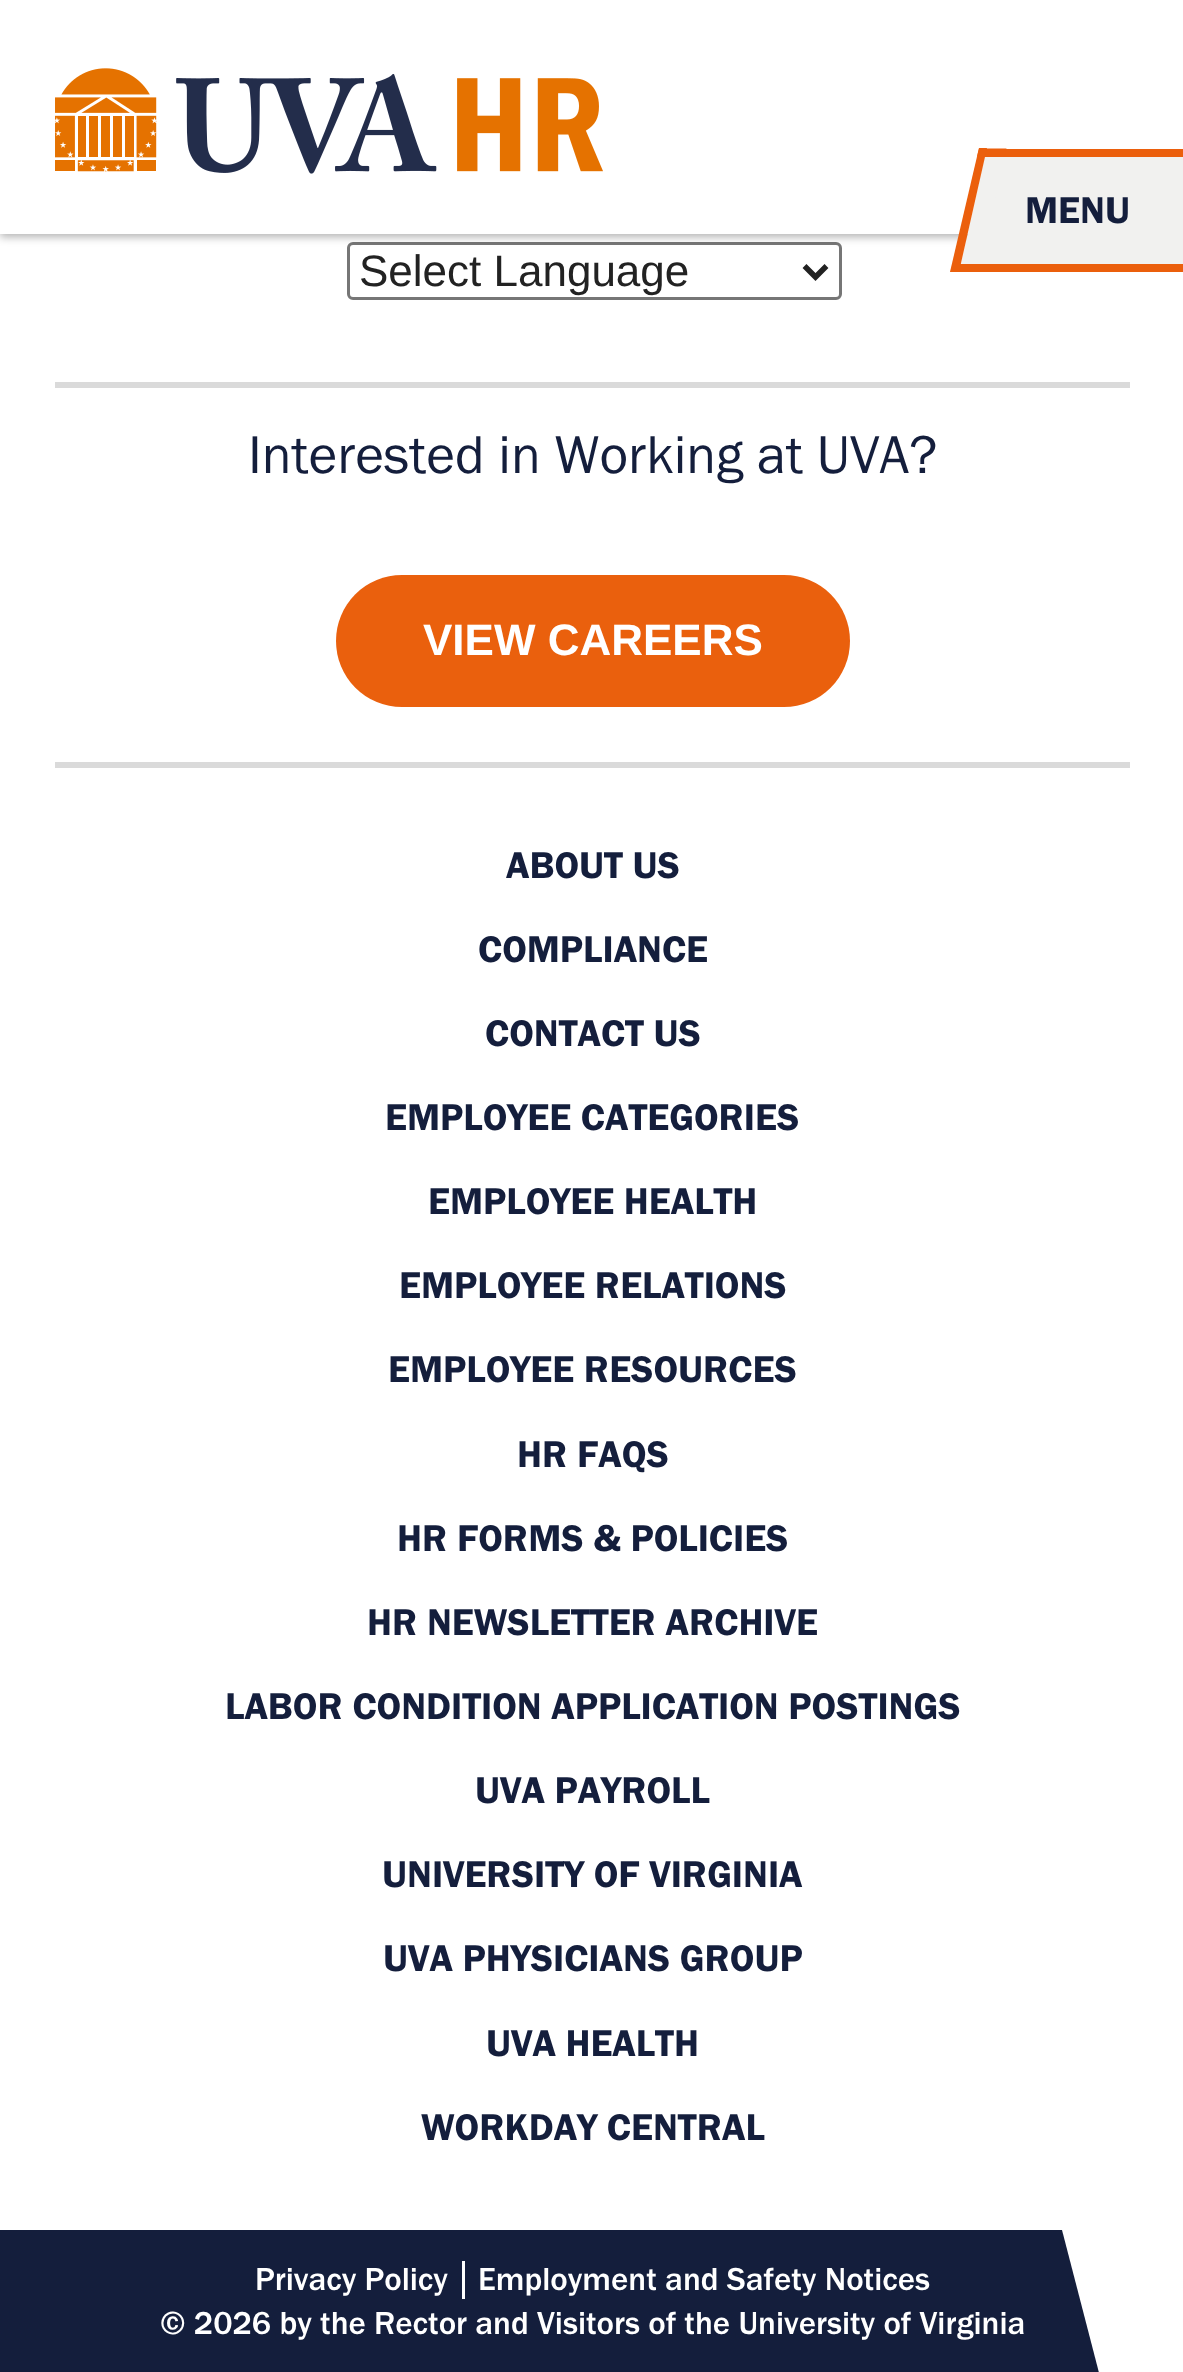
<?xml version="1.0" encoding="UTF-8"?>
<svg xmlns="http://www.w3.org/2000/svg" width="1183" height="2372">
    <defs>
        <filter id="blur1" x="-50%" y="-200%" width="200%" height="500%"><feGaussianBlur stdDeviation="4"/></filter>
    </defs>
    <rect width="100%" height="100%" fill="#FFFFFF"/>
    <rect x="348.5" y="243.5" width="492" height="55" rx="4.5" fill="none" stroke="#767676" stroke-width="3"/>
    <rect x="0" y="3" width="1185" height="234" fill="#000000" fill-opacity="0.3" filter="url(#blur1)"/>
    <rect x="0" y="0" width="1183" height="234" fill="#FFFFFF"/>
    <image x="55" y="68" width="548" height="106" href="img_01.png"/>
    <rect x="979" y="157" width="204" height="107" fill="#F1F1EF"/>
    <rect x="979" y="149" width="204" height="8" fill="#EB5F0C"/>
    <rect x="990" y="264" width="193" height="8" fill="#EB5F0C"/>
    <path d="M 985 157 H 1005 L 980 264 H 961 Z" fill="#F1F1EF"/>
    <path d="M 979 148.5 H 1006.5 L 1004.5 156.5 H 977 Z" fill="#EB5F0C"/>
    <path d="M 952.5 264 H 980 L 978 272 H 950.5 Z" fill="#EB5F0C"/>
    <path d="M 979 148 H 987 L 959 272 H 950 Z" fill="#EB5F0C"/>
    <rect x="978" y="264" width="12" height="8" fill="#EB5F0C"/>
    <text x="1025" y="223" font-family="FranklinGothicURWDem" font-size="38.5" fill="#141E3C">MENU</text>
    <path d="M 804.5 266 L 815.5 277 L 826.5 266" fill="none" stroke="#222222" stroke-width="5.5"/>
    <text x="359" y="286" font-family="Liberation Sans" font-size="44" fill="#222222">Select Language</text>
    <rect x="55" y="382" width="1075" height="6" fill="#DADADA"/>
    <rect x="55" y="762" width="1075" height="6" fill="#DADADA"/>
    <text x="248" y="473" font-family="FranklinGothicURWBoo" font-size="55" fill="#141E3C">Interested in Working at UVA?</text>
    <rect x="336" y="575" width="514" height="132" rx="66" fill="#EA600D"/>
    <text x="423" y="655" font-family="Liberation Sans" font-size="44" font-weight="700" fill="#FFFFFF">VIEW CAREERS</text>
    <text x="506" y="878" font-family="FranklinGothicURWDem" font-size="38.5" fill="#141E3C">ABOUT US</text>
    <text x="478" y="962" font-family="FranklinGothicURWDem" font-size="38.5" fill="#141E3C">COMPLIANCE</text>
    <text x="485" y="1046" font-family="FranklinGothicURWDem" font-size="38.5" fill="#141E3C">CONTACT US</text>
    <text x="385" y="1130" font-family="FranklinGothicURWDem" font-size="38.5" fill="#141E3C">EMPLOYEE CATEGORIES</text>
    <text x="428" y="1214" font-family="FranklinGothicURWDem" font-size="38.5" fill="#141E3C">EMPLOYEE HEALTH</text>
    <text x="399" y="1298" font-family="FranklinGothicURWDem" font-size="38.5" fill="#141E3C">EMPLOYEE RELATIONS</text>
    <text x="388" y="1382" font-family="FranklinGothicURWDem" font-size="38.5" fill="#141E3C">EMPLOYEE RESOURCES</text>
    <text x="517" y="1467" font-family="FranklinGothicURWDem" font-size="38.5" fill="#141E3C">HR FAQS</text>
    <text x="397" y="1551" font-family="FranklinGothicURWDem" font-size="38.5" fill="#141E3C">HR FORMS &amp; POLICIES</text>
    <text x="367" y="1635" font-family="FranklinGothicURWDem" font-size="38.5" fill="#141E3C">HR NEWSLETTER ARCHIVE</text>
    <text x="225" y="1719" font-family="FranklinGothicURWDem" font-size="38.5" fill="#141E3C">LABOR CONDITION APPLICATION POSTINGS</text>
    <text x="475" y="1803" font-family="FranklinGothicURWDem" font-size="38.5" fill="#141E3C">UVA PAYROLL</text>
    <text x="382" y="1887" font-family="FranklinGothicURWDem" font-size="38.5" fill="#141E3C">UNIVERSITY OF VIRGINIA</text>
    <text x="383" y="1971" font-family="FranklinGothicURWDem" font-size="38.5" fill="#141E3C">UVA PHYSICIANS GROUP</text>
    <text x="486" y="2056" font-family="FranklinGothicURWDem" font-size="38.5" fill="#141E3C">UVA HEALTH</text>
    <text x="421" y="2140" font-family="FranklinGothicURWDem" font-size="38.5" fill="#141E3C">WORKDAY CENTRAL</text>
    <rect x="0" y="2230" width="1062" height="142" fill="#141E3C"/>
    <text x="255" y="2290" font-family="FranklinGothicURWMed" font-size="33" fill="#FFFFFF">Privacy Policy</text>
    <rect x="462" y="2261" width="3" height="38" fill="#FFFFFF"/>
    <text x="478" y="2290" font-family="FranklinGothicURWMed" font-size="33" fill="#FFFFFF">Employment and Safety Notices</text>
    <path d="M 1062 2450 V 2230 L 1119 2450 Z" fill="#141E3C"/>
    <text x="160" y="2334" font-family="FranklinGothicURWMed" font-size="33" fill="#FFFFFF">© 2026 by the Rector and Visitors of the University of Virginia</text>
</svg>
